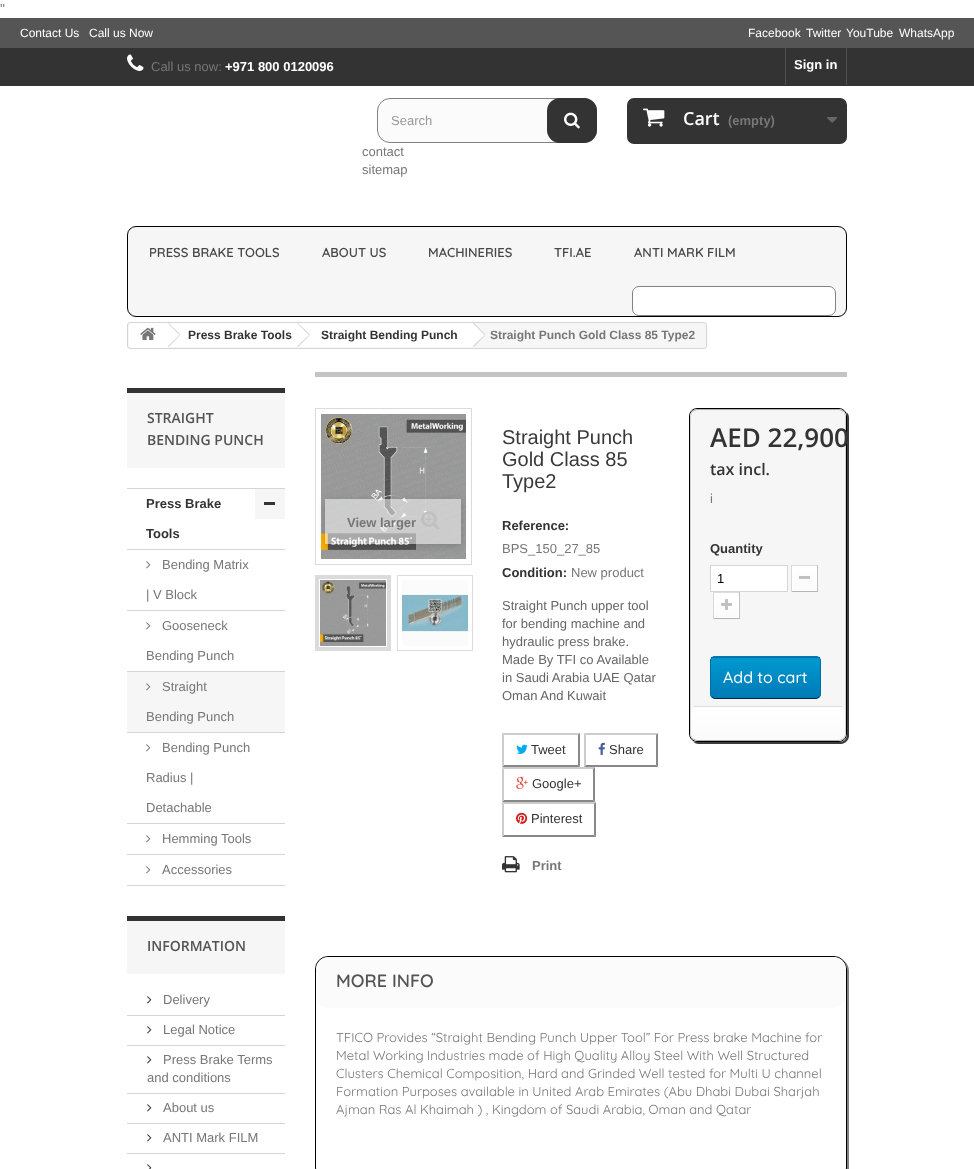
<?xml version="1.0" encoding="UTF-8"?>
<svg xmlns="http://www.w3.org/2000/svg" width="974" height="1169">
    <defs>
        <clipPath id="clip1"><path d="M 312 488 H 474 V 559 H 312 Z M 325 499 H 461 V 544 H 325 Z" clip-rule="evenodd"/></clipPath>
        <filter id="blur1" x="-50%" y="-200%" width="200%" height="500%"><feGaussianBlur stdDeviation="4"/></filter>
        <linearGradient id="g1" gradientUnits="userSpaceOnUse" x1="805" y1="567" x2="805" y2="590"><stop offset="0" stop-color="#FFFFFF"/><stop offset="1" stop-color="#FBFBFB"/></linearGradient>
        <linearGradient id="g2" gradientUnits="userSpaceOnUse" x1="727" y1="594" x2="727" y2="617"><stop offset="0" stop-color="#FFFFFF"/><stop offset="1" stop-color="#FBFBFB"/></linearGradient>
        <clipPath id="clip2"><rect x="710" y="656" width="111" height="43" rx="5"/></clipPath>
        <linearGradient id="g3" gradientUnits="userSpaceOnUse" x1="766" y1="616" x2="766" y2="657"><stop offset="0" stop-color="#009AD0"/><stop offset="1" stop-color="#007AB7"/></linearGradient>
        <linearGradient id="g4" gradientUnits="userSpaceOnUse" x1="766" y1="657" x2="766" y2="698"><stop offset="0" stop-color="#009AD0"/><stop offset="1" stop-color="#007AB7"/></linearGradient>
        <linearGradient id="g5" gradientUnits="userSpaceOnUse" x1="766" y1="698" x2="766" y2="739"><stop offset="0" stop-color="#009AD0"/><stop offset="1" stop-color="#007AB7"/></linearGradient>
        <clipPath id="clip3"><rect x="691" y="706" width="154" height="34" rx="7"/></clipPath>
        <linearGradient id="g6" gradientUnits="userSpaceOnUse" x1="768" y1="707" x2="768" y2="740"><stop offset="0" stop-color="#FFFFFF"/><stop offset="1" stop-color="#FBFBFB"/></linearGradient>
    </defs>
    <rect width="100%" height="100%" fill="#FFFFFF"/>
    <text x="0" y="13" font-family="Liberation Sans" font-size="13" fill="#777777">''</text>
    <rect x="0" y="18" width="974" height="30" fill="#555555"/>
    <text x="20" y="37" font-family="Liberation Sans" font-size="12" fill="#FFFFFF">Contact Us</text>
    <text x="89" y="37" font-family="Liberation Sans" font-size="12" fill="#FFFFFF">Call us Now</text>
    <text x="748" y="37" font-family="Liberation Sans" font-size="12" fill="#FFFFFF">Facebook</text>
    <text x="806" y="37" font-family="Liberation Sans" font-size="12" fill="#FFFFFF">Twitter</text>
    <text x="846" y="37" font-family="Liberation Sans" font-size="12" fill="#FFFFFF">YouTube</text>
    <text x="899" y="37" font-family="Liberation Sans" font-size="12" fill="#FFFFFF">WhatsApp</text>
    <rect x="0" y="48" width="974" height="38" fill="#333333"/>
    <image x="127" y="54" width="17" height="17" href="img_01.png"/>
    <text x="151" y="71" font-family="Liberation Sans" font-size="13" fill="#777777">Call us now:</text>
    <text x="225" y="71" font-family="Liberation Sans" font-size="13" font-weight="700" fill="#FFFFFF">+971 800 0120096</text>
    <rect x="846" y="48" width="1" height="37" fill="#515151"/>
    <rect x="785" y="48" width="1" height="37" fill="#515151"/>
    <text x="794" y="69" font-family="Liberation Sans" font-size="13" font-weight="700" fill="#FFFFFF">Sign in</text>
    <rect x="377.5" y="98.5" width="219" height="44" rx="12.5" fill="#FBFBFB" stroke="#808080"/>
    <text x="391" y="125" font-family="Liberation Sans" font-size="13" fill="#999999">Search</text>
    <rect x="547" y="98" width="50" height="45" rx="13" fill="#333333"/>
    <image x="564" y="112" width="16" height="17" href="img_02.png"/>
    <rect x="627" y="98" width="220" height="46" rx="7" fill="#333333"/>
    <image x="643" y="108" width="22" height="19" href="img_03.png"/>
    <text x="683" y="125" font-family="Open Sans" font-size="18" font-weight="600" fill="#FFFFFF">Cart</text>
    <text x="728" y="125" font-family="Liberation Sans" font-size="13" font-weight="700" fill="#777777">(empty)</text>
    <image x="827" y="117" width="11" height="6" href="img_04.png"/>
    <text font-family="Liberation Sans" font-size="13" fill="#777777">
        <tspan x="362" y="156">contact</tspan>
        <tspan x="362" y="174">sitemap</tspan>
    </text>
    <rect x="127.5" y="226.5" width="719" height="90" rx="8.5" fill="#F6F6F6" stroke="#000000"/>
    <text x="149" y="257" font-family="Quicksand" font-size="13" font-weight="600" fill="#484848">PRESS BRAKE TOOLS</text>
    <text x="322" y="257" font-family="Quicksand" font-size="13" font-weight="600" fill="#484848">ABOUT US</text>
    <text x="428" y="257" font-family="Quicksand" font-size="13" font-weight="600" fill="#484848">MACHINERIES</text>
    <text x="554" y="257" font-family="Quicksand" font-size="13" font-weight="600" fill="#484848">TFI.AE</text>
    <text x="634" y="257" font-family="Quicksand" font-size="13" font-weight="600" fill="#484848">ANTI MARK FILM</text>
    <rect x="632.5" y="286.5" width="203" height="29" rx="6.5" fill="#FFFFFF" stroke="#838383"/>
    <rect x="127.5" y="322.5" width="579" height="26" rx="2.5" fill="#F6F6F6" stroke="#D6D4D4"/>
    <path d="M 132 323 H 167 V 348 H 132 C 130.5 348 129 346.5 129 345 V 326 C 129 324.5 130.5 323 132 323 Z" fill="#FFFFFF"/>
    <image x="140" y="327" width="16" height="13" href="img_05.png"/>
    <rect x="167" y="323" width="132" height="24" fill="#FFFFFF"/>
    <path d="M 168.5 323 L 180 334 L 179.5 335 L 168 323.5 Z M 179.5 335 L 180 335.5 L 168.5 347 L 168 346 Z" fill="#D6D4D4"/>
    <text x="188" y="339" font-family="Liberation Sans" font-size="12" font-weight="700" fill="#333333">Press Brake Tools</text>
    <path d="M 309 323.5 L 319 333.5 C 319.5 334 319.5 335.5 319 336.5 L 309 346 C 308 347 307 347 306 346 L 296 336.5 C 295.5 335.5 295.5 334 296 333.5 L 306 323.5 C 307 323 308 323 309 323.5 Z" fill="#FFFFFF"/>
    <rect x="299" y="323" width="173" height="24" fill="#FFFFFF"/>
    <path d="M 298 323 L 309.5 334 L 309 335 L 297.5 323.5 Z M 309 335 L 309.5 335.5 L 298 347 L 297.5 346 Z" fill="#D6D4D4"/>
    <text x="321" y="339" font-family="Liberation Sans" font-size="12" font-weight="700" fill="#333333">Straight Bending Punch</text>
    <path d="M 474.5 323.5 L 484.5 333.5 C 485.5 334 485.5 335.5 484.5 336.5 L 474.5 346 C 474 347 472.5 347 472 346 L 462 336.5 C 461 335.5 461 334 462 333.5 L 472 323.5 C 472.5 323 474 323 474.5 323.5 Z" fill="#FFFFFF"/>
    <path d="M 474 323 L 485 334 L 484.5 335 L 473 323.5 Z M 484.5 335 L 485 335.5 L 474 347 L 473 346 Z" fill="#D6D4D4"/>
    <text x="490" y="339" font-family="Liberation Sans" font-size="12" font-weight="700" fill="#777777">Straight Punch Gold Class 85 Type2</text>
    <rect x="127" y="393" width="158" height="75" fill="#F6F6F6"/>
    <rect x="127" y="388" width="158" height="5" fill="#333333"/>
    <text font-family="Open Sans" font-size="14" font-weight="600" fill="#555454">
        <tspan x="147" y="423">STRAIGHT</tspan>
        <tspan x="147" y="445">BENDING PUNCH</tspan>
    </text>
    <rect x="127" y="488" width="158" height="1" fill="#D6D4D4"/>
    <rect x="127" y="549" width="158" height="1" fill="#D6D4D4"/>
    <text x="146" y="508" font-family="Liberation Sans" font-size="13" font-weight="700" fill="#333333">Press Brake</text>
    <text x="146" y="538" font-family="Liberation Sans" font-size="13" font-weight="700" fill="#333333">Tools</text>
    <rect x="255" y="489" width="30" height="30" fill="#F6F6F6"/>
    <rect x="264" y="502" width="11" height="3" fill="#333333"/>
    <rect x="127" y="610" width="158" height="1" fill="#D6D4D4"/>
    <image x="146" y="561" width="5" height="8" href="img_06.png"/>
    <text x="162" y="569" font-family="Liberation Sans" font-size="13" fill="#777777">Bending Matrix</text>
    <text x="146" y="599" font-family="Liberation Sans" font-size="13" fill="#777777">| V Block</text>
    <rect x="127" y="671" width="158" height="1" fill="#D6D4D4"/>
    <image x="146" y="622" width="5" height="8" href="img_06.png"/>
    <text x="162" y="630" font-family="Liberation Sans" font-size="13" fill="#777777">Gooseneck</text>
    <text x="146" y="660" font-family="Liberation Sans" font-size="13" fill="#777777">Bending Punch</text>
    <rect x="127" y="672" width="158" height="60" fill="#F6F6F6"/>
    <rect x="127" y="732" width="158" height="1" fill="#D6D4D4"/>
    <image x="146" y="683" width="5" height="8" href="img_07.png"/>
    <text x="162" y="691" font-family="Liberation Sans" font-size="13" fill="#777777">Straight</text>
    <text x="146" y="721" font-family="Liberation Sans" font-size="13" fill="#777777">Bending Punch</text>
    <rect x="127" y="823" width="158" height="1" fill="#D6D4D4"/>
    <image x="146" y="744" width="5" height="8" href="img_06.png"/>
    <text x="162" y="752" font-family="Liberation Sans" font-size="13" fill="#777777">Bending Punch</text>
    <text x="146" y="782" font-family="Liberation Sans" font-size="13" fill="#777777">Radius |</text>
    <text x="146" y="812" font-family="Liberation Sans" font-size="13" fill="#777777">Detachable</text>
    <rect x="127" y="854" width="158" height="1" fill="#D6D4D4"/>
    <image x="146" y="835" width="5" height="8" href="img_06.png"/>
    <text x="162" y="843" font-family="Liberation Sans" font-size="13" fill="#777777">Hemming Tools</text>
    <rect x="127" y="885" width="158" height="1" fill="#D6D4D4"/>
    <image x="146" y="866" width="5" height="8" href="img_06.png"/>
    <text x="162" y="874" font-family="Liberation Sans" font-size="13" fill="#777777">Accessories</text>
    <rect x="127" y="921" width="158" height="53" fill="#F6F6F6"/>
    <rect x="127" y="916" width="158" height="5" fill="#333333"/>
    <text x="147" y="951" font-family="Open Sans" font-size="14" font-weight="600" fill="#555454">INFORMATION</text>
    <image x="147" y="996" width="5" height="8" href="img_08.png"/>
    <text x="163" y="1004" font-family="Liberation Sans" font-size="13" fill="#777777">Delivery</text>
    <rect x="127" y="1015" width="158" height="1" fill="#D6D4D4"/>
    <image x="147" y="1026" width="5" height="8" href="img_08.png"/>
    <text x="163" y="1034" font-family="Liberation Sans" font-size="13" fill="#777777">Legal Notice</text>
    <rect x="127" y="1045" width="158" height="1" fill="#D6D4D4"/>
    <image x="147" y="1056" width="5" height="8" href="img_08.png"/>
    <text x="163" y="1064" font-family="Liberation Sans" font-size="13" fill="#777777">Press Brake Terms</text>
    <text x="147" y="1082" font-family="Liberation Sans" font-size="13" fill="#777777">and conditions</text>
    <rect x="127" y="1093" width="158" height="1" fill="#D6D4D4"/>
    <image x="147" y="1104" width="5" height="8" href="img_08.png"/>
    <text x="163" y="1112" font-family="Liberation Sans" font-size="13" fill="#777777">About us</text>
    <rect x="127" y="1123" width="158" height="1" fill="#D6D4D4"/>
    <image x="147" y="1134" width="5" height="8" href="img_08.png"/>
    <text x="163" y="1142" font-family="Liberation Sans" font-size="13" fill="#777777">ANTI Mark FILM</text>
    <rect x="127" y="1153" width="158" height="1" fill="#D6D4D4"/>
    <image x="147" y="1164" width="5" height="5" href="img_09.png"/>
    <rect x="315" y="372" width="532" height="5" fill="#C4C4C4"/>
    <rect x="315.5" y="408.5" width="156" height="156" fill="none" stroke="#DBDBDB"/>
    <image x="321" y="414" width="145" height="145" href="img_10.png"/>
    <g clip-path="url(#clip1)">
        <rect x="325" y="501" width="136" height="45" fill="#000000" fill-opacity="0.16" filter="url(#blur1)"/>
    </g>
    <rect x="325" y="499" width="136" height="45" fill="#FFFFFF" fill-opacity="0.5"/>
    <text x="347" y="527" font-family="Liberation Sans" font-size="13" font-weight="700" fill="#777777">View larger</text>
    <image x="421" y="511" width="19" height="19" href="img_11.png"/>
    <rect x="315.5" y="575.5" width="75" height="75" fill="none" stroke="#DBDBDB"/>
    <rect x="317.5" y="577.5" width="71" height="71" fill="none" stroke="#DBDBDB" stroke-width="3"/>
    <image x="320" y="580" width="66" height="66" href="img_12.png"/>
    <rect x="397.5" y="575.5" width="75" height="75" fill="none" stroke="#DBDBDB"/>
    <rect x="402" y="580" width="66" height="66" fill="#FBFBFB"/>
    <image x="402" y="594" width="66" height="38" href="img_13.png"/>
    <text font-family="Liberation Sans" font-size="20" fill="#3A3939">
        <tspan x="502" y="444">Straight Punch</tspan>
        <tspan x="502" y="466">Gold Class 85</tspan>
        <tspan x="502" y="488">Type2</tspan>
    </text>
    <text x="502" y="530" font-family="Liberation Sans" font-size="13" font-weight="700" fill="#333333">Reference:</text>
    <text x="502" y="553" font-family="Liberation Sans" font-size="13" fill="#777777">BPS_150_27_85</text>
    <text x="502" y="577" font-family="Liberation Sans" font-size="13" font-weight="700" fill="#333333">Condition:</text>
    <text x="571" y="577" font-family="Liberation Sans" font-size="13" fill="#777777">New product</text>
    <text font-family="Liberation Sans" font-size="13" fill="#666666">
        <tspan x="502" y="610">Straight Punch upper tool</tspan>
        <tspan x="502" y="628">for bending machine and</tspan>
        <tspan x="502" y="646">hydraulic press brake.</tspan>
        <tspan x="502" y="664">Made By TFI co Available</tspan>
        <tspan x="502" y="682">in Saudi Arabia UAE Qatar</tspan>
        <tspan x="502" y="700">Oman And Kuwait</tspan>
    </text>
    <path d="M 502 733 H 580 L 578 735 H 504 Z" fill="#CCCCCC"/>
    <path d="M 580 733 V 767 L 578 765 V 735 Z" fill="#888888"/>
    <path d="M 580 767 H 502 L 504 765 H 578 Z" fill="#888888"/>
    <path d="M 502 767 V 733 L 504 735 V 765 Z" fill="#CCCCCC"/>
    <image x="516" y="744" width="12" height="10" href="img_14.png"/>
    <text x="531" y="754" font-family="Liberation Sans" font-size="13" fill="#333333">Tweet</text>
    <path d="M 584 733 H 658 L 656 735 H 586 Z" fill="#CCCCCC"/>
    <path d="M 658 733 V 767 L 656 765 V 735 Z" fill="#888888"/>
    <path d="M 658 767 H 584 L 586 765 H 656 Z" fill="#888888"/>
    <path d="M 584 767 V 733 L 586 735 V 765 Z" fill="#CCCCCC"/>
    <image x="598" y="742" width="7" height="13" href="img_15.png"/>
    <text x="609" y="754" font-family="Liberation Sans" font-size="13" fill="#333333">Share</text>
    <path d="M 502 767 H 595 L 593 769 H 504 Z" fill="#CCCCCC"/>
    <path d="M 595 767 V 802 L 593 800 V 769 Z" fill="#888888"/>
    <path d="M 595 802 H 502 L 504 800 H 593 Z" fill="#888888"/>
    <path d="M 502 802 V 767 L 504 769 V 800 Z" fill="#CCCCCC"/>
    <image x="516" y="776" width="12" height="13" href="img_16.png"/>
    <text x="532" y="788" font-family="Liberation Sans" font-size="13" fill="#333333">Google+</text>
    <path d="M 502 802 H 596 L 594 804 H 504 Z" fill="#CCCCCC"/>
    <path d="M 596 802 V 837 L 594 835 V 804 Z" fill="#888888"/>
    <path d="M 596 837 H 502 L 504 835 H 594 Z" fill="#888888"/>
    <path d="M 502 837 V 802 L 504 804 V 835 Z" fill="#CCCCCC"/>
    <image x="516" y="812" width="12" height="12" href="img_17.png"/>
    <text x="531" y="823" font-family="Liberation Sans" font-size="13" fill="#333333">Pinterest</text>
    <image x="502" y="856" width="18" height="17" href="img_18.png"/>
    <text x="532" y="870" font-family="Liberation Sans" font-size="13" font-weight="700" fill="#777777">Print</text>
    <path d="M 693 741 C 694 743 696 744 699 744 H 841 C 845 744 849 740 849 736 V 418 C 849 415 848 413 846 412 C 847 413 847 414 847 416 V 734 C 847 739 844 742 839 742 H 697 C 695 742 694 742 693 741 Z" fill="#3C3C3C"/>
    <rect x="689.5" y="408.5" width="157" height="333" rx="7.5" fill="none" stroke="#000000"/>
    <rect x="690" y="409" width="156" height="332" rx="8" fill="#F6F6F6"/>
    <path d="M 692.5 411.5 C 694 410.5 696 409.5 698 409.5 H 838 C 840 409.5 842 410.5 843.5 411.5" fill="none" stroke="#B0AFAF"/>
    <path d="M 843.5 411.5 C 844.5 413 845.5 415 845.5 417 V 733 C 845.5 735 844.5 737 843.5 738.5" fill="none" stroke="#D2D0D0"/>
    <path d="M 843.5 738.5 C 842 739.5 840 740.5 838 740.5 H 698 C 696 740.5 694 739.5 692.5 738.5" fill="none" stroke="#B0AFAF"/>
    <path d="M 692.5 738.5 C 691.5 737 690.5 735 690.5 733 V 417 C 690.5 415 691.5 413 692.5 411.5" fill="none" stroke="#D2D0D0"/>
    <text x="710" y="447" font-family="Open Sans" font-size="26" font-weight="600" fill="#333333">AED 22,900</text>
    <text x="710" y="475" font-family="Open Sans" font-size="16" font-weight="600" fill="#333333">tax incl.</text>
    <text x="710" y="503" font-family="Liberation Sans" font-size="13" fill="#777777">i</text>
    <text x="710" y="553" font-family="Liberation Sans" font-size="13" font-weight="700" fill="#333333">Quantity</text>
    <rect x="710.5" y="565.5" width="77" height="26" fill="#FFFFFF" stroke="#D6D4D4"/>
    <text x="717" y="583" font-family="Liberation Sans" font-size="13" fill="#000000">1</text>
    <rect x="791" y="565" width="27" height="1" fill="#DEDCDC"/>
    <rect x="817" y="565" width="1" height="27" fill="#C1BFBF"/>
    <rect x="791" y="591" width="27" height="1" fill="#B5B4B4"/>
    <rect x="791" y="565" width="1" height="27" fill="#DAD8D8"/>
    <rect x="793" y="567" width="23" height="23" fill="url(#g1)"/>
    <rect x="792.5" y="566.5" width="24" height="24" fill="none" stroke="#FFFFFF"/>
    <rect x="799" y="576" width="11" height="3" fill="#C0C0C0"/>
    <rect x="713" y="592" width="27" height="1" fill="#DEDCDC"/>
    <rect x="739" y="592" width="1" height="27" fill="#C1BFBF"/>
    <rect x="713" y="618" width="27" height="1" fill="#B5B4B4"/>
    <rect x="713" y="592" width="1" height="27" fill="#DAD8D8"/>
    <rect x="715" y="594" width="23" height="23" fill="url(#g2)"/>
    <rect x="714.5" y="593.5" width="24" height="24" fill="none" stroke="#FFFFFF"/>
    <image x="721" y="599" width="11" height="11" href="img_19.png"/>
    <g clip-path="url(#clip2)">
        <rect x="710" y="656" width="111" height="1" fill="url(#g3)"/>
        <rect x="710" y="658" width="111" height="40" fill="url(#g4)"/>
        <rect x="710" y="698" width="111" height="1" fill="url(#g5)"/>
    </g>
    <path d="M 712 658 L 714.5 656.5 H 816.5 L 819 658" fill="none" stroke="#0079B6"/>
    <path d="M 819 658 C 820 658.5 820.5 660 820.5 661 V 694 C 820.5 695 820 696.5 819 697" fill="none" stroke="#006FA8"/>
    <path d="M 819 697 L 816.5 698.5 H 714.5 L 712 697" fill="none" stroke="#012740"/>
    <path d="M 712 697 C 711 696.5 710.5 695 710.5 694 V 661 C 710.5 660 711 658.5 712 658" fill="none" stroke="#006FA8"/>
    <rect x="711" y="657" width="109" height="1" fill="#006FA8"/>
    <text x="723" y="683" font-family="Quicksand" font-size="16" font-weight="500" fill="#FFFFFF">Add to cart</text>
    <g clip-path="url(#clip3)">
        <path d="M 691 707 H 845 V 733 C 845 737 842 740 838 740 H 698 C 694 740 691 737 691 733 Z" fill="url(#g6)"/>
    </g>
    <rect x="694" y="706" width="148" height="1" fill="#DFDEDE"/>
    <path d="M 320 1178 C 322 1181 326 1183 330 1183 H 836 C 843 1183 849 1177 849 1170 V 971 C 849 967 847 963 844 961 C 846 963 847 966 847 969 V 1168 C 847 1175 841 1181 834 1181 H 328 C 325 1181 322 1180 320 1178 Z" fill="#808080"/>
    <rect x="315.5" y="956.5" width="531" height="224" rx="12.5" fill="none" stroke="#000000"/>
    <rect x="316" y="957" width="530" height="51" rx="13" fill="#FBFBFB"/>
    <text x="336" y="987" font-family="Quicksand" font-size="18" font-weight="600" fill="#555454">MORE INFO</text>
    <text font-family="Quicksand" font-size="13" fill="#777777">
        <tspan x="336" y="1042">TFICO Provides “Straight Bending Punch Upper Tool” For Press brake Machine for</tspan>
        <tspan x="336" y="1060">Metal Working Industries made of High Quality Alloy Steel With Well Structured</tspan>
        <tspan x="336" y="1078">Clusters Chemical Composition, Hard and Grinded Well tested for Multi U channel</tspan>
        <tspan x="336" y="1096">Formation Purposes available in United Arab Emirates (Abu Dhabi Dubai Sharjah</tspan>
        <tspan x="336" y="1114">Ajman Ras Al Khaimah ) , Kingdom of Saudi Arabia, Oman and Qatar</tspan>
    </text>
</svg>
